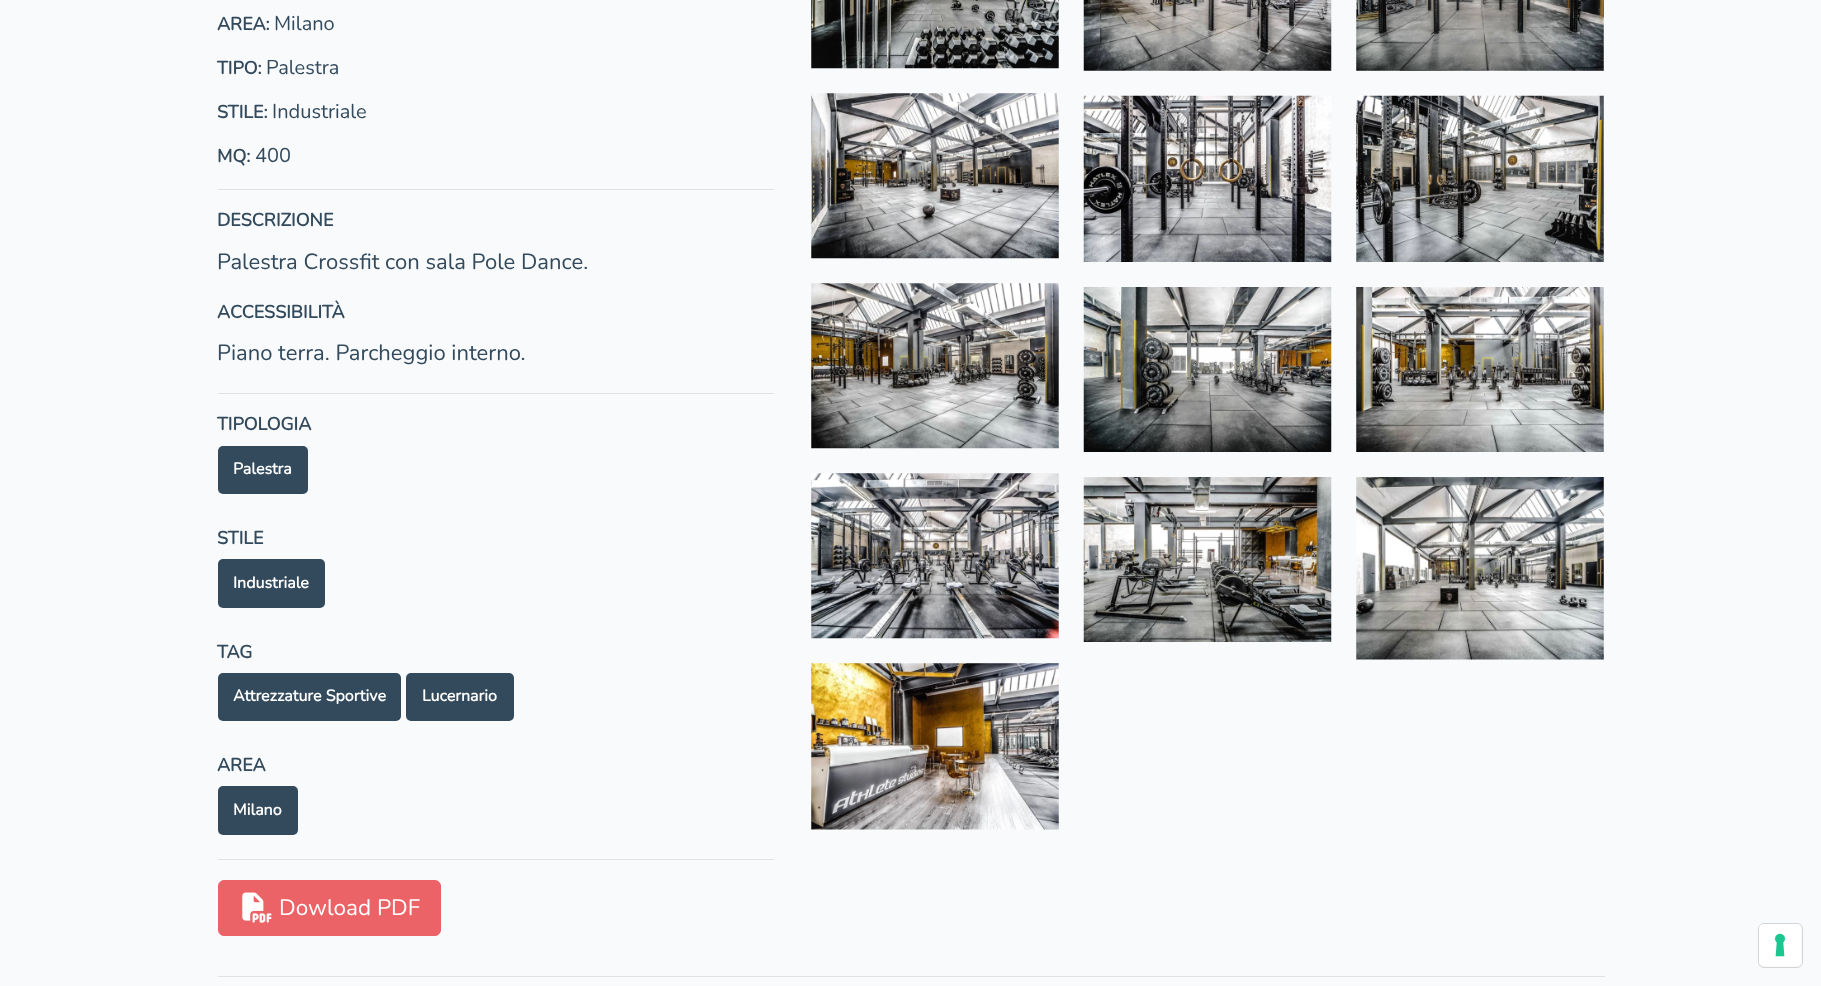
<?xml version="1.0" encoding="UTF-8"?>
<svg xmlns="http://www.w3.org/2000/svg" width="1821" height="986">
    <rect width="100%" height="100%" fill="#F8FAFC"/>
    <text x="217" y="30" font-family="Nunito" font-size="18" font-weight="700" fill="#334A5D">AREA:</text>
    <text x="274" y="30" font-family="Nunito" font-size="20" font-weight="200" fill="#334A5D">Milano</text>
    <text x="217" y="74" font-family="Nunito" font-size="18" font-weight="700" fill="#334A5D">TIPO:</text>
    <text x="266" y="74" font-family="Nunito" font-size="20" font-weight="200" fill="#334A5D">Palestra</text>
    <text x="217" y="118" font-family="Nunito" font-size="18" font-weight="700" fill="#334A5D">STILE:</text>
    <text x="272" y="118" font-family="Nunito" font-size="20" font-weight="200" fill="#334A5D">Industriale</text>
    <text x="217" y="162" font-family="Nunito" font-size="18" font-weight="700" fill="#334A5D">MQ:</text>
    <text x="255" y="162" font-family="Nunito" font-size="20" font-weight="200" fill="#334A5D">400</text>
    <rect x="218" y="189" width="556" height="1" fill="#DFE1E3"/>
    <text x="217" y="226" font-family="Nunito" font-size="18" font-weight="700" fill="#334A5D">DESCRIZIONE</text>
    <text x="217" y="269" font-family="Nunito" font-size="22" font-weight="200" fill="#334A5D">Palestra Crossfit con sala Pole Dance.</text>
    <text x="217" y="318" font-family="Nunito" font-size="18" font-weight="700" fill="#334A5D">ACCESSIBILITÀ</text>
    <text x="217" y="360" font-family="Nunito" font-size="22" font-weight="200" fill="#334A5D">Piano terra. Parcheggio interno.</text>
    <rect x="218" y="393" width="556" height="1" fill="#DFE1E3"/>
    <text x="217" y="430" font-family="Nunito" font-size="18" font-weight="700" fill="#334A5D">TIPOLOGIA</text>
    <rect x="218" y="446" width="90" height="48" rx="5" fill="#334A5D"/>
    <text x="233" y="474" font-family="Nunito" font-size="16" font-weight="700" fill="#FFFFFF">Palestra</text>
    <text x="217" y="544" font-family="Nunito" font-size="18" font-weight="700" fill="#334A5D">STILE</text>
    <rect x="218" y="559" width="107" height="49" rx="5" fill="#334A5D"/>
    <text x="233" y="588" font-family="Nunito" font-size="16" font-weight="700" fill="#FFFFFF">Industriale</text>
    <text x="217" y="658" font-family="Nunito" font-size="18" font-weight="700" fill="#334A5D">TAG</text>
    <rect x="218" y="673" width="183" height="48" rx="5" fill="#334A5D"/>
    <text x="233" y="701" font-family="Nunito" font-size="16" font-weight="700" fill="#FFFFFF">Attrezzature Sportive</text>
    <rect x="406" y="673" width="108" height="48" rx="5" fill="#334A5D"/>
    <text x="422" y="701" font-family="Nunito" font-size="16" font-weight="700" fill="#FFFFFF">Lucernario</text>
    <text x="217" y="771" font-family="Nunito" font-size="18" font-weight="700" fill="#334A5D">AREA</text>
    <rect x="218" y="786" width="80" height="49" rx="5" fill="#334A5D"/>
    <text x="233" y="815" font-family="Nunito" font-size="16" font-weight="700" fill="#FFFFFF">Milano</text>
    <rect x="218" y="859" width="556" height="1" fill="#DFE1E3"/>
    <rect x="218.5" y="880.5" width="222" height="55" rx="5.5" fill="#EC6367" stroke="#EC6367"/>
    <image x="242" y="892" width="30" height="31" href="img_01.png"/>
    <text x="279" y="915" font-family="Nunito" font-size="22.5" font-weight="200" fill="#FFFFFF">Dowload PDF</text>
    <image x="811" y="0" width="248" height="69" href="img_02.png"/>
    <image x="1083" y="0" width="249" height="71" href="img_03.png"/>
    <image x="1356" y="0" width="248" height="71" href="img_04.png"/>
    <image x="811" y="93" width="248" height="166" href="img_05.png"/>
    <image x="1083" y="95" width="249" height="167" href="img_06.png"/>
    <image x="1356" y="95" width="248" height="167" href="img_07.png"/>
    <image x="811" y="283" width="248" height="166" href="img_08.png"/>
    <image x="1083" y="287" width="249" height="165" href="img_09.png"/>
    <image x="1356" y="287" width="248" height="165" href="img_10.png"/>
    <image x="811" y="473" width="248" height="166" href="img_11.png"/>
    <image x="1083" y="477" width="249" height="165" href="img_12.png"/>
    <image x="1356" y="477" width="248" height="183" href="img_13.png"/>
    <image x="811" y="663" width="248" height="167" href="img_14.png"/>
    <rect x="218" y="976" width="1387" height="1" fill="#DFE1E3"/>
    <rect x="1758.5" y="923.5" width="44" height="44" rx="5.5" fill="none" stroke="#D3D5D6"/>
    <rect x="1759" y="924" width="42" height="42" rx="5" fill="#FFFFFF"/>
    <image x="1775" y="933" width="10" height="24" href="img_15.png"/>
</svg>
